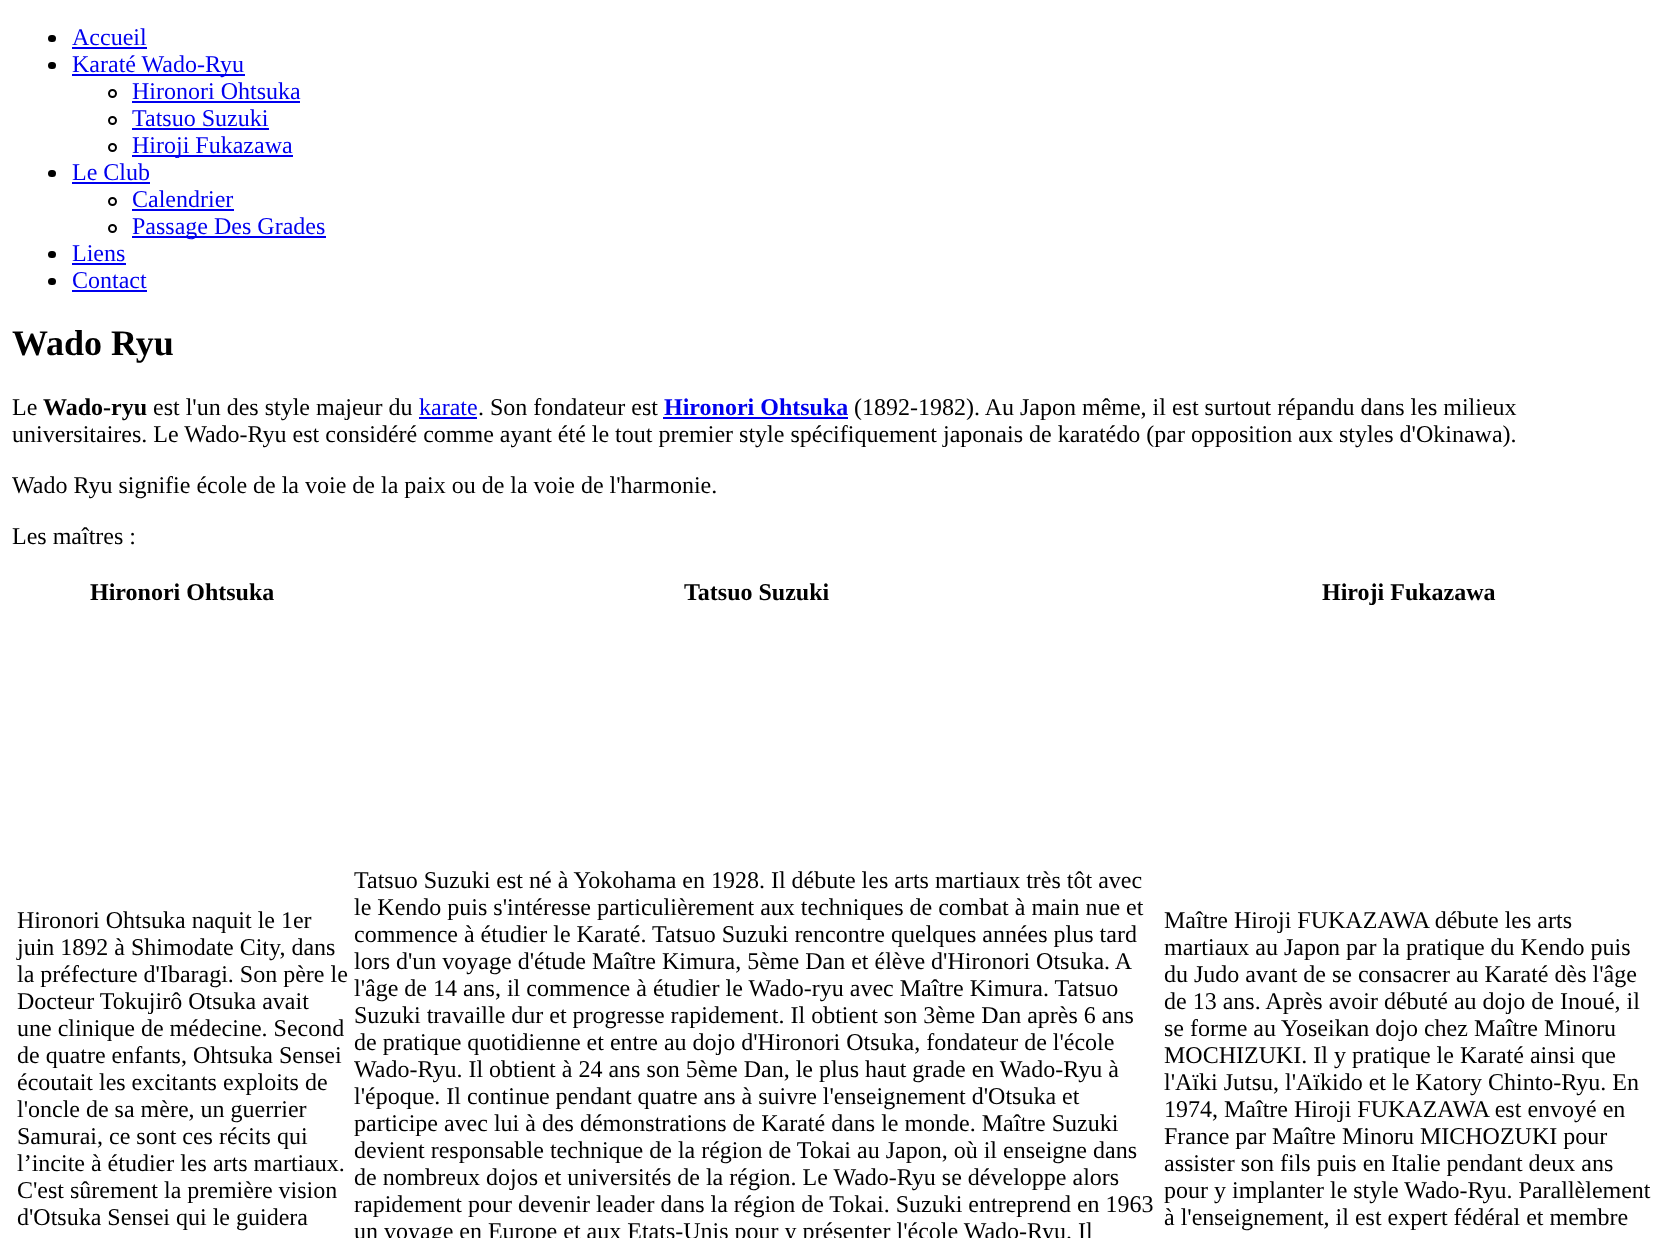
<?xml version="1.0" encoding="UTF-8"?>
<svg xmlns="http://www.w3.org/2000/svg" width="1669" height="1238">
    <rect width="100%" height="100%" fill="#FFFFFF"/>
    <rect x="48" y="35" width="8" height="7" rx="3.5" fill="#000000"/>
    <text x="72" y="45" font-family="Liberation Serif" font-size="24" fill="#0000EE">Accueil</text>
    <rect x="72" y="47" width="75" height="2" fill="#0000EE"/>
    <rect x="48" y="62" width="8" height="7" rx="3.5" fill="#000000"/>
    <rect x="72" y="74" width="173" height="2" fill="#0000EE"/>
    <text x="72" y="72" font-family="Liberation Serif" font-size="24" fill="#0000EE">Karaté Wado-Ryu</text>
    <circle cx="112.5" cy="93.5" r="3.5" fill="none" stroke="#000000" stroke-width="2"/>
    <text x="132" y="99" font-family="Liberation Serif" font-size="24" fill="#0000EE">Hironori Ohtsuka</text>
    <rect x="132" y="101" width="168" height="2" fill="#0000EE"/>
    <circle cx="112.5" cy="120.5" r="3.5" fill="none" stroke="#000000" stroke-width="2"/>
    <text x="132" y="126" font-family="Liberation Serif" font-size="24" fill="#0000EE">Tatsuo Suzuki</text>
    <rect x="132" y="128" width="137" height="2" fill="#0000EE"/>
    <circle cx="112.5" cy="147.5" r="3.5" fill="none" stroke="#000000" stroke-width="2"/>
    <rect x="132" y="155" width="161" height="2" fill="#0000EE"/>
    <text x="132" y="153" font-family="Liberation Serif" font-size="24" fill="#0000EE">Hiroji Fukazawa</text>
    <rect x="48" y="170" width="8" height="7" rx="3.5" fill="#000000"/>
    <text x="72" y="180" font-family="Liberation Serif" font-size="24" fill="#0000EE">Le Club</text>
    <rect x="72" y="182" width="78" height="2" fill="#0000EE"/>
    <circle cx="112.5" cy="201.5" r="3.5" fill="none" stroke="#000000" stroke-width="2"/>
    <text x="132" y="207" font-family="Liberation Serif" font-size="24" fill="#0000EE">Calendrier</text>
    <rect x="132" y="209" width="102" height="2" fill="#0000EE"/>
    <circle cx="112.5" cy="228.5" r="3.5" fill="none" stroke="#000000" stroke-width="2"/>
    <rect x="132" y="236" width="194" height="2" fill="#0000EE"/>
    <text x="132" y="234" font-family="Liberation Serif" font-size="24" fill="#0000EE">Passage Des Grades</text>
    <rect x="48" y="251" width="8" height="7" rx="3.5" fill="#000000"/>
    <text x="72" y="261" font-family="Liberation Serif" font-size="24" fill="#0000EE">Liens</text>
    <rect x="72" y="263" width="54" height="2" fill="#0000EE"/>
    <rect x="48" y="278" width="8" height="7" rx="3.5" fill="#000000"/>
    <text x="72" y="288" font-family="Liberation Serif" font-size="24" fill="#0000EE">Contact</text>
    <rect x="72" y="290" width="75" height="2" fill="#0000EE"/>
    <text x="12" y="355" font-family="Liberation Serif" font-size="36" font-weight="700" fill="#000000">Wado Ryu</text>
    <text x="12" y="415" font-family="Liberation Serif" font-size="24" fill="#000000">Le</text>
    <text x="43" y="415" font-family="Liberation Serif" font-size="24" font-weight="700" fill="#000000">Wado-ryu</text>
    <text x="153" y="415" font-family="Liberation Serif" font-size="24" fill="#000000">est l'un des style majeur du</text>
    <text x="419" y="415" font-family="Liberation Serif" font-size="24" fill="#0000EE">karate</text>
    <rect x="419" y="417" width="58" height="2" fill="#0000EE"/>
    <text x="478" y="415" font-family="Liberation Serif" font-size="24" fill="#000000">. Son fondateur est</text>
    <text x="664" y="415" font-family="Liberation Serif" font-size="24" font-weight="700" fill="#0000EE">Hironori Ohtsuka</text>
    <rect x="663" y="417" width="185" height="2" fill="#0000EE"/>
    <text x="854" y="415" font-family="Liberation Serif" font-size="24" fill="#000000">(1892-1982). Au Japon même, il est surtout répandu dans les milieux</text>
    <text x="12" y="442" font-family="Liberation Serif" font-size="24" fill="#000000">universitaires. Le Wado-Ryu est considéré comme ayant été le tout premier style spécifiquement japonais de karatédo (par opposition aux styles d'Okinawa).</text>
    <text x="12" y="493" font-family="Liberation Serif" font-size="24" fill="#000000">Wado Ryu signifie école de la voie de la paix ou de la voie de l'harmonie.</text>
    <text x="12" y="544" font-family="Liberation Serif" font-size="24" fill="#000000">Les maîtres :</text>
    <text x="90" y="600" font-family="Liberation Serif" font-size="24" font-weight="700" fill="#000000">Hironori Ohtsuka</text>
    <text x="684" y="600" font-family="Liberation Serif" font-size="24" font-weight="700" fill="#000000">Tatsuo Suzuki</text>
    <text x="1322" y="600" font-family="Liberation Serif" font-size="24" font-weight="700" fill="#000000">Hiroji Fukazawa</text>
    <text font-family="Liberation Serif" font-size="24" fill="#000000">
        <tspan x="17" y="928">Hironori Ohtsuka naquit le 1er</tspan>
        <tspan x="17" y="955">juin 1892 à Shimodate City, dans</tspan>
        <tspan x="17" y="982">la préfecture d'Ibaragi. Son père le</tspan>
        <tspan x="17" y="1009">Docteur Tokujirô Otsuka avait</tspan>
        <tspan x="17" y="1036">une clinique de médecine. Second</tspan>
        <tspan x="17" y="1063">de quatre enfants, Ohtsuka Sensei</tspan>
        <tspan x="17" y="1090">écoutait les excitants exploits de</tspan>
        <tspan x="17" y="1117">l'oncle de sa mère, un guerrier</tspan>
        <tspan x="17" y="1144">Samurai, ce sont ces récits qui</tspan>
        <tspan x="17" y="1171">l’incite à étudier les arts martiaux.</tspan>
        <tspan x="17" y="1198">C'est sûrement la première vision</tspan>
        <tspan x="17" y="1225">d'Otsuka Sensei qui le guidera</tspan>
    </text>
    <text font-family="Liberation Serif" font-size="24" fill="#000000">
        <tspan x="354" y="888">Tatsuo Suzuki est né à Yokohama en 1928. Il débute les arts martiaux très tôt avec</tspan>
        <tspan x="354" y="915">le Kendo puis s'intéresse particulièrement aux techniques de combat à main nue et</tspan>
        <tspan x="354" y="942">commence à étudier le Karaté. Tatsuo Suzuki rencontre quelques années plus tard</tspan>
        <tspan x="354" y="969">lors d'un voyage d'étude Maître Kimura, 5ème Dan et élève d'Hironori Otsuka. A</tspan>
        <tspan x="354" y="996">l'âge de 14 ans, il commence à étudier le Wado-ryu avec Maître Kimura. Tatsuo</tspan>
        <tspan x="354" y="1023">Suzuki travaille dur et progresse rapidement. Il obtient son 3ème Dan après 6 ans</tspan>
        <tspan x="354" y="1050">de pratique quotidienne et entre au dojo d'Hironori Otsuka, fondateur de l'école</tspan>
        <tspan x="354" y="1077">Wado-Ryu. Il obtient à 24 ans son 5ème Dan, le plus haut grade en Wado-Ryu à</tspan>
        <tspan x="354" y="1104">l'époque. Il continue pendant quatre ans à suivre l'enseignement d'Otsuka et</tspan>
        <tspan x="354" y="1131">participe avec lui à des démonstrations de Karaté dans le monde. Maître Suzuki</tspan>
        <tspan x="354" y="1158">devient responsable technique de la région de Tokai au Japon, où il enseigne dans</tspan>
        <tspan x="354" y="1185">de nombreux dojos et universités de la région. Le Wado-Ryu se développe alors</tspan>
        <tspan x="354" y="1212">rapidement pour devenir leader dans la région de Tokai. Suzuki entreprend en 1963</tspan>
        <tspan x="354" y="1239">un voyage en Europe et aux Etats-Unis pour y présenter l'école Wado-Ryu. Il</tspan>
    </text>
    <text font-family="Liberation Serif" font-size="24" fill="#000000">
        <tspan x="1164" y="928">Maître Hiroji FUKAZAWA débute les arts</tspan>
        <tspan x="1164" y="955">martiaux au Japon par la pratique du Kendo puis</tspan>
        <tspan x="1164" y="982">du Judo avant de se consacrer au Karaté dès l'âge</tspan>
        <tspan x="1164" y="1009">de 13 ans. Après avoir débuté au dojo de Inoué, il</tspan>
        <tspan x="1164" y="1036">se forme au Yoseikan dojo chez Maître Minoru</tspan>
        <tspan x="1164" y="1063">MOCHIZUKI. Il y pratique le Karaté ainsi que</tspan>
        <tspan x="1164" y="1090">l'Aïki Jutsu, l'Aïkido et le Katory Chinto-Ryu. En</tspan>
        <tspan x="1164" y="1117">1974, Maître Hiroji FUKAZAWA est envoyé en</tspan>
        <tspan x="1164" y="1144">France par Maître Minoru MICHOZUKI pour</tspan>
        <tspan x="1164" y="1171">assister son fils puis en Italie pendant deux ans</tspan>
        <tspan x="1164" y="1198">pour y implanter le style Wado-Ryu. Parallèlement</tspan>
        <tspan x="1164" y="1225">à l'enseignement, il est expert fédéral et membre</tspan>
    </text>
</svg>
